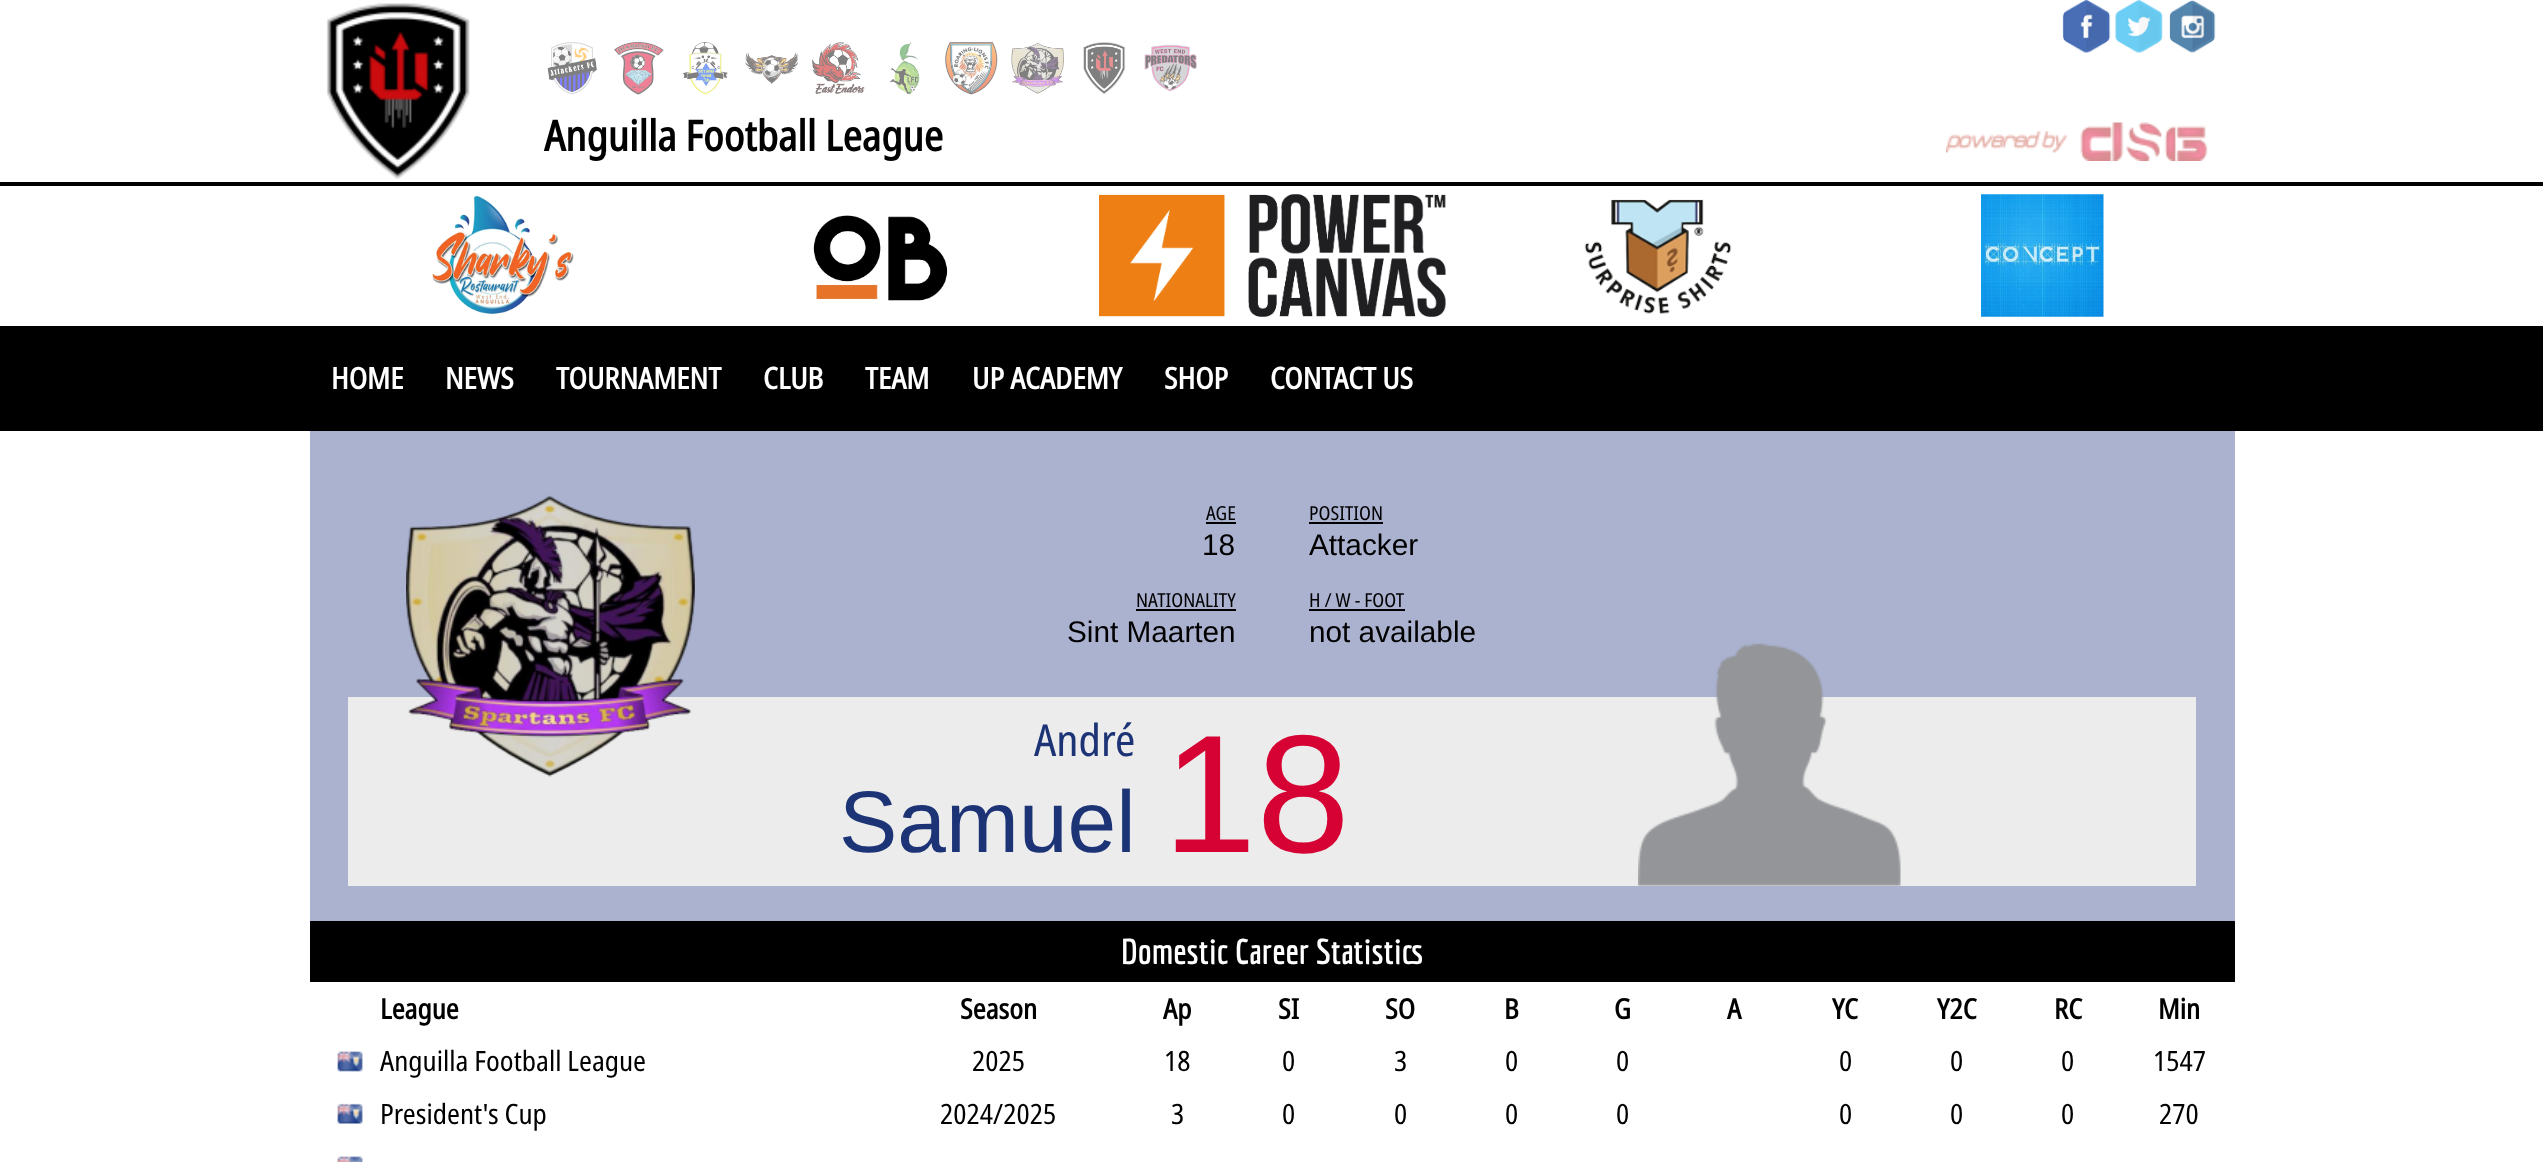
<?xml version="1.0" encoding="UTF-8"?>
<svg xmlns="http://www.w3.org/2000/svg" width="2543" height="1162">
    <rect width="100%" height="100%" fill="#FFFFFF"/>
    <image x="326" y="3" width="144" height="176" href="img_01.png"/>
    <image x="547" y="42" width="50" height="53" href="img_02.png"/>
    <image x="614" y="42" width="50" height="53" href="img_03.png"/>
    <image x="683" y="42" width="45" height="53" href="img_04.png"/>
    <image x="745" y="52" width="53" height="32" href="img_05.png"/>
    <image x="812" y="42" width="53" height="52" href="img_06.png"/>
    <image x="890" y="42" width="30" height="53" href="img_07.png"/>
    <image x="945" y="42" width="53" height="53" href="img_08.png"/>
    <image x="1011" y="42" width="53" height="52" href="img_09.png"/>
    <image x="1083" y="42" width="43" height="53" href="img_10.png"/>
    <image x="1144" y="44" width="53" height="48" href="img_11.png"/>
    <image x="2062" y="0" width="49" height="53" href="img_12.png"/>
    <image x="2115" y="0" width="48" height="53" href="img_13.png"/>
    <image x="2169" y="0" width="47" height="53" href="img_14.png"/>
    <text x="544" y="151" font-family="Noto Sans" font-size="42" font-weight="700" fill="#000000">Anguilla Football League</text>
    <image x="1946" y="122" width="262" height="39" href="img_15.png"/>
    <rect x="0" y="182" width="2543" height="4" fill="#000000"/>
    <image x="432" y="195" width="142" height="119" href="img_16.png"/>
    <image x="813" y="215" width="135" height="86" href="img_17.png"/>
    <image x="1099" y="194" width="347" height="123" href="img_18.png"/>
    <image x="1584" y="199" width="148" height="115" href="img_19.png"/>
    <image x="1981" y="194" width="123" height="123" href="img_20.png"/>
    <rect x="0" y="326" width="2543" height="105" fill="#000000"/>
    <text x="331" y="389" font-family="Noto Sans" font-size="29.75" font-weight="700" fill="#FFFFFF">HOME</text>
    <text x="445" y="389" font-family="Noto Sans" font-size="29.75" font-weight="700" fill="#FFFFFF">NEWS</text>
    <text x="556" y="389" font-family="Noto Sans" font-size="29.75" font-weight="700" fill="#FFFFFF">TOURNAMENT</text>
    <text x="763" y="389" font-family="Noto Sans" font-size="29.75" font-weight="700" fill="#FFFFFF">CLUB</text>
    <text x="865" y="389" font-family="Noto Sans" font-size="29.75" font-weight="700" fill="#FFFFFF">TEAM</text>
    <text x="972" y="389" font-family="Noto Sans" font-size="29.75" font-weight="700" fill="#FFFFFF">UP ACADEMY</text>
    <text x="1164" y="389" font-family="Noto Sans" font-size="29.75" font-weight="700" fill="#FFFFFF">SHOP</text>
    <text x="1270" y="389" font-family="Noto Sans" font-size="29.75" font-weight="700" fill="#FFFFFF">CONTACT US</text>
    <rect x="310" y="431" width="1925" height="490" fill="#ABB2D0"/>
    <rect x="348" y="697" width="1848" height="189" fill="#ECECEC"/>
    <image x="406" y="495" width="289" height="282" href="img_21.png"/>
    <text x="1206" y="520" font-family="Noto Sans" font-size="19.25" fill="#000000">AGE</text>
    <rect x="1206" y="522" width="30" height="2" fill="#000000"/>
    <text x="1202" y="555" font-family="Liberation Sans" font-size="29.75" fill="#000000">18</text>
    <text x="1136" y="607" font-family="Noto Sans" font-size="19.25" fill="#000000">NATIONALITY</text>
    <rect x="1136" y="609" width="100" height="2" fill="#000000"/>
    <text x="1067" y="642" font-family="Liberation Sans" font-size="29.75" fill="#000000">Sint Maarten</text>
    <text x="1309" y="520" font-family="Noto Sans" font-size="19.25" fill="#000000">POSITION</text>
    <rect x="1309" y="522" width="74" height="2" fill="#000000"/>
    <text x="1309" y="555" font-family="Liberation Sans" font-size="29.75" fill="#000000">Attacker</text>
    <text x="1309" y="607" font-family="Noto Sans" font-size="19.25" fill="#000000">H / W - FOOT</text>
    <rect x="1309" y="609" width="96" height="2" fill="#000000"/>
    <text x="1309" y="642" font-family="Liberation Sans" font-size="29.75" fill="#000000">not available</text>
    <text x="1034" y="756" font-family="Noto Sans" font-size="44" fill="#1C3476">André</text>
    <text x="839" y="852" font-family="Liberation Sans" font-size="87.5" fill="#1C3476">Samuel</text>
    <text x="1163" y="852" font-family="Liberation Sans" font-size="168" fill="#D60234">18</text>
    <image x="1638" y="643" width="263" height="243" href="img_22.png"/>
    <rect x="310" y="921" width="1925" height="61" fill="#000000"/>
    <text x="1121" y="964" font-family="Economica" font-size="35" font-weight="700" fill="#FFFFFF">Domestic Career Statistics</text>
    <text x="380" y="1019" font-family="Noto Sans" font-size="28" font-weight="700" fill="#000000">League</text>
    <text x="960" y="1019" font-family="Noto Sans" font-size="28" font-weight="700" fill="#000000">Season</text>
    <text x="1163" y="1019" font-family="Noto Sans" font-size="28" font-weight="700" fill="#000000">Ap</text>
    <text x="1278" y="1019" font-family="Noto Sans" font-size="28" font-weight="700" fill="#000000">SI</text>
    <text x="1385" y="1019" font-family="Noto Sans" font-size="28" font-weight="700" fill="#000000">SO</text>
    <text x="1504" y="1019" font-family="Noto Sans" font-size="28" font-weight="700" fill="#000000">B</text>
    <text x="1614" y="1019" font-family="Noto Sans" font-size="28" font-weight="700" fill="#000000">G</text>
    <text x="1727" y="1019" font-family="Noto Sans" font-size="28" font-weight="700" fill="#000000">A</text>
    <text x="1832" y="1019" font-family="Noto Sans" font-size="28" font-weight="700" fill="#000000">YC</text>
    <text x="1937" y="1019" font-family="Noto Sans" font-size="28" font-weight="700" fill="#000000">Y2C</text>
    <text x="2054" y="1019" font-family="Noto Sans" font-size="28" font-weight="700" fill="#000000">RC</text>
    <text x="2158" y="1019" font-family="Noto Sans" font-size="28" font-weight="700" fill="#000000">Min</text>
    <image x="337" y="1051" width="26" height="21" href="img_23.png"/>
    <text x="380" y="1071" font-family="Noto Sans" font-size="28" fill="#000000">Anguilla Football League</text>
    <text x="972" y="1071" font-family="Noto Sans" font-size="28" fill="#000000">2025</text>
    <text x="1164" y="1071" font-family="Noto Sans" font-size="28" fill="#000000">18</text>
    <text x="1282" y="1071" font-family="Noto Sans" font-size="28" fill="#000000">0</text>
    <text x="1394" y="1071" font-family="Noto Sans" font-size="28" fill="#000000">3</text>
    <text x="1505" y="1071" font-family="Noto Sans" font-size="28" fill="#000000">0</text>
    <text x="1616" y="1071" font-family="Noto Sans" font-size="28" fill="#000000">0</text>
    <text x="1839" y="1071" font-family="Noto Sans" font-size="28" fill="#000000">0</text>
    <text x="1950" y="1071" font-family="Noto Sans" font-size="28" fill="#000000">0</text>
    <text x="2061" y="1071" font-family="Noto Sans" font-size="28" fill="#000000">0</text>
    <text x="2153" y="1071" font-family="Noto Sans" font-size="28" fill="#000000">1547</text>
    <image x="337" y="1103" width="26" height="21" href="img_24.png"/>
    <text x="380" y="1124" font-family="Noto Sans" font-size="28" fill="#000000">President's Cup</text>
    <text x="940" y="1124" font-family="Noto Sans" font-size="28" fill="#000000">2024/2025</text>
    <text x="1171" y="1124" font-family="Noto Sans" font-size="28" fill="#000000">3</text>
    <text x="1282" y="1124" font-family="Noto Sans" font-size="28" fill="#000000">0</text>
    <text x="1394" y="1124" font-family="Noto Sans" font-size="28" fill="#000000">0</text>
    <text x="1505" y="1124" font-family="Noto Sans" font-size="28" fill="#000000">0</text>
    <text x="1616" y="1124" font-family="Noto Sans" font-size="28" fill="#000000">0</text>
    <text x="1839" y="1124" font-family="Noto Sans" font-size="28" fill="#000000">0</text>
    <text x="1950" y="1124" font-family="Noto Sans" font-size="28" fill="#000000">0</text>
    <text x="2061" y="1124" font-family="Noto Sans" font-size="28" fill="#000000">0</text>
    <text x="2159" y="1124" font-family="Noto Sans" font-size="28" fill="#000000">270</text>
    <image x="337" y="1156" width="26" height="6" href="img_25.png"/>
</svg>
